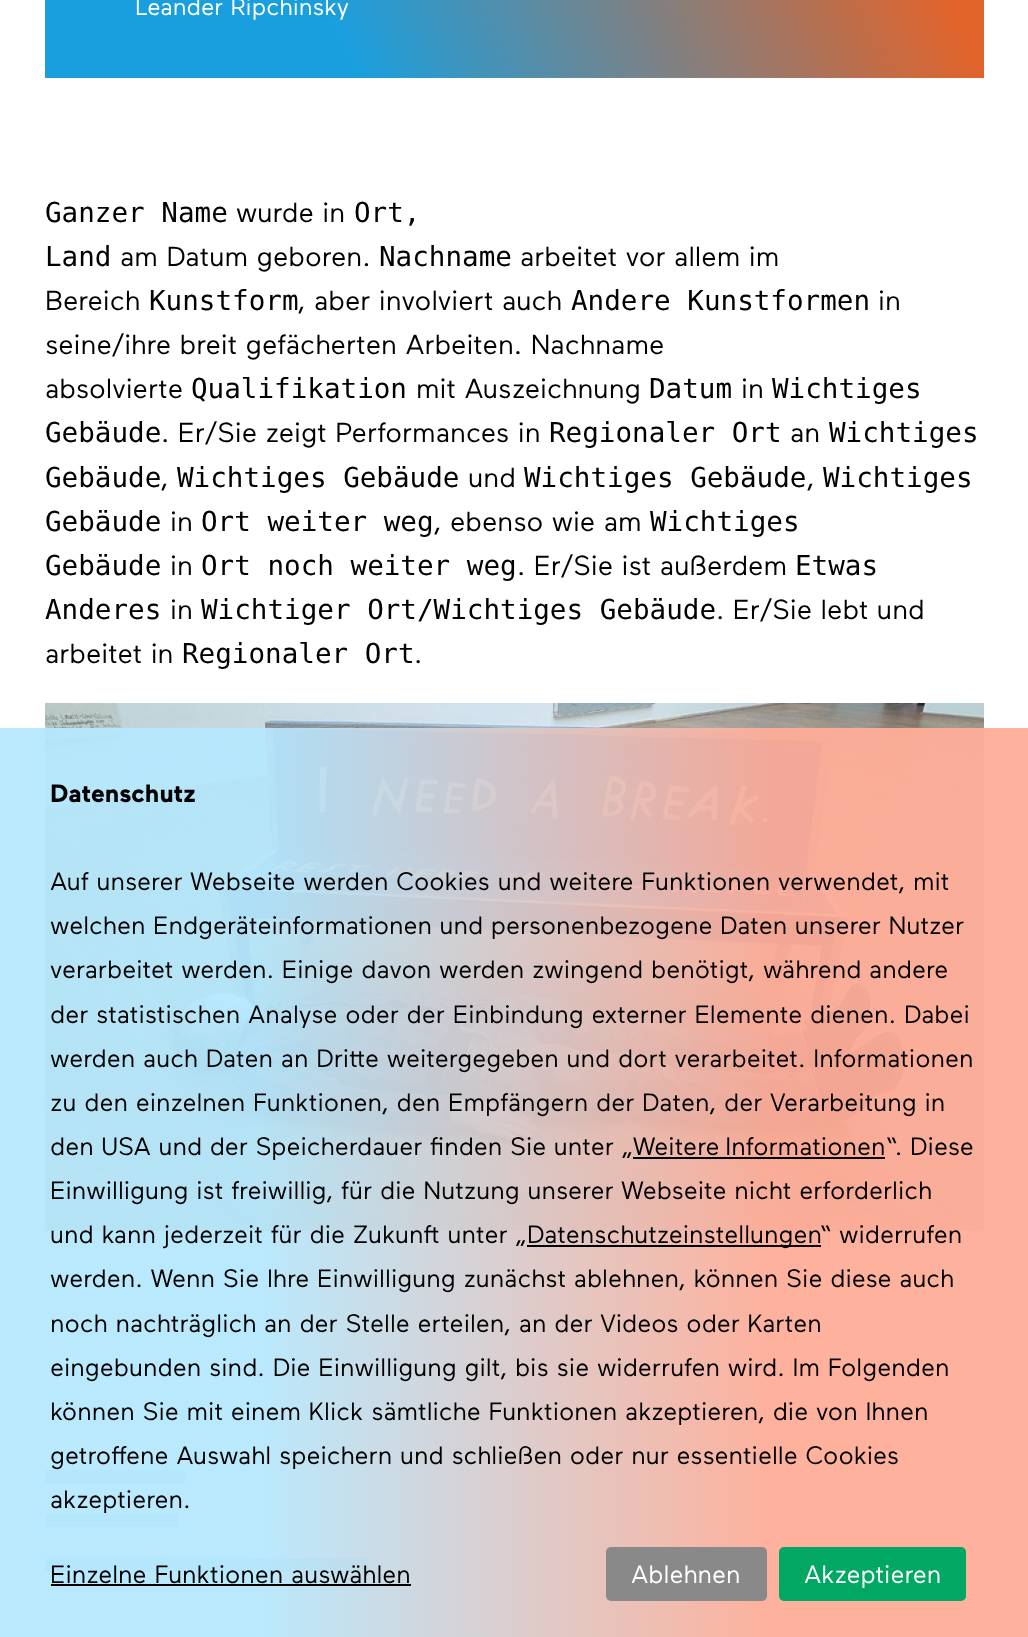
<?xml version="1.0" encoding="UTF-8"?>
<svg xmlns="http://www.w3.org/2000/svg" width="1028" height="1637">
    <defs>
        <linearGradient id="g1" gradientUnits="userSpaceOnUse" x1="-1.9" y1="-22" x2="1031" y2="-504"><stop offset="0" stop-color="#1A9FDE"/><stop offset="0.25" stop-color="#1A9FDE"/><stop offset="0.75" stop-color="#E2632A"/><stop offset="1" stop-color="#E2632A"/></linearGradient>
        <linearGradient id="g2" gradientUnits="userSpaceOnUse" x1="0" y1="1183" x2="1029" y2="1183"><stop offset="0" stop-color="#B6E8FD" stop-opacity="0.95"/><stop offset="0.25" stop-color="#B6E8FD" stop-opacity="0.95"/><stop offset="0.75" stop-color="#FEAD98" stop-opacity="0.95"/><stop offset="1" stop-color="#FEAD98" stop-opacity="0.95"/></linearGradient>
    </defs>
    <rect width="100%" height="100%" fill="#FFFFFF"/>
    <rect x="45" y="0" width="939" height="78" fill="url(#g1)"/>
    <text x="135" y="15" font-family="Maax" font-size="24" fill="#FFFFFF">Leander Ripchinsky</text>
    <text x="45" y="222" font-family="DejaVu Sans Mono" font-size="27.6" fill="#000000">Ganzer Name</text>
    <text x="236" y="222" font-family="Maax" font-size="27.6" fill="#000000">wurde in</text>
    <text x="354" y="222" font-family="DejaVu Sans Mono" font-size="27.6" fill="#000000">Ort,</text>
    <text x="45" y="266" font-family="DejaVu Sans Mono" font-size="27.6" fill="#000000">Land</text>
    <text x="120" y="266" font-family="Maax" font-size="27.6" fill="#000000">am Datum geboren.</text>
    <text x="379" y="266" font-family="DejaVu Sans Mono" font-size="27.6" fill="#000000">Nachname</text>
    <text x="520" y="266" font-family="Maax" font-size="27.6" fill="#000000">arbeitet vor allem im</text>
    <text x="45" y="310" font-family="Maax" font-size="27.6" fill="#000000">Bereich</text>
    <text x="149" y="310" font-family="DejaVu Sans Mono" font-size="27.6" fill="#000000">Kunstform</text>
    <text x="298" y="310" font-family="Maax" font-size="27.6" fill="#000000">, aber involviert auch</text>
    <text x="571" y="310" font-family="DejaVu Sans Mono" font-size="27.6" fill="#000000">Andere Kunstformen</text>
    <text x="878" y="310" font-family="Maax" font-size="27.6" fill="#000000">in</text>
    <text font-family="Maax" font-size="27.6" fill="#000000">
        <tspan x="45" y="354">seine/ihre breit gefächerten Arbeiten. Nachname</tspan>
        <tspan x="45" y="398">absolvierte</tspan>
    </text>
    <text x="191" y="398" font-family="DejaVu Sans Mono" font-size="27.6" fill="#000000">Qualifikation</text>
    <text x="416" y="398" font-family="Maax" font-size="27.6" fill="#000000">mit Auszeichnung</text>
    <text x="649" y="398" font-family="DejaVu Sans Mono" font-size="27.6" fill="#000000">Datum</text>
    <text x="741" y="398" font-family="Maax" font-size="27.6" fill="#000000">in</text>
    <text x="772" y="398" font-family="DejaVu Sans Mono" font-size="27.6" fill="#000000">Wichtiges</text>
    <text x="45" y="442" font-family="DejaVu Sans Mono" font-size="27.6" fill="#000000">Gebäude</text>
    <text x="161" y="442" font-family="Maax" font-size="27.6" fill="#000000">. Er/Sie zeigt Performances in</text>
    <text x="549" y="442" font-family="DejaVu Sans Mono" font-size="27.6" fill="#000000">Regionaler Ort</text>
    <text x="790" y="442" font-family="Maax" font-size="27.6" fill="#000000">an</text>
    <text x="829" y="442" font-family="DejaVu Sans Mono" font-size="27.6" fill="#000000">Wichtiges</text>
    <text x="45" y="487" font-family="DejaVu Sans Mono" font-size="27.6" fill="#000000">Gebäude</text>
    <text x="161" y="487" font-family="Maax" font-size="27.6" fill="#000000">,</text>
    <text x="177" y="487" font-family="DejaVu Sans Mono" font-size="27.6" fill="#000000">Wichtiges Gebäude</text>
    <text x="468" y="487" font-family="Maax" font-size="27.6" fill="#000000">und</text>
    <text x="524" y="487" font-family="DejaVu Sans Mono" font-size="27.6" fill="#000000">Wichtiges Gebäude</text>
    <text x="807" y="487" font-family="Maax" font-size="27.6" fill="#000000">,</text>
    <text x="823" y="487" font-family="DejaVu Sans Mono" font-size="27.6" fill="#000000">Wichtiges</text>
    <text x="45" y="531" font-family="DejaVu Sans Mono" font-size="27.6" fill="#000000">Gebäude</text>
    <text x="170" y="531" font-family="Maax" font-size="27.6" fill="#000000">in</text>
    <text x="201" y="531" font-family="DejaVu Sans Mono" font-size="27.6" fill="#000000">Ort weiter weg</text>
    <text x="434" y="531" font-family="Maax" font-size="27.6" fill="#000000">, ebenso wie am</text>
    <text x="650" y="531" font-family="DejaVu Sans Mono" font-size="27.6" fill="#000000">Wichtiges</text>
    <text x="45" y="575" font-family="DejaVu Sans Mono" font-size="27.6" fill="#000000">Gebäude</text>
    <text x="170" y="575" font-family="Maax" font-size="27.6" fill="#000000">in</text>
    <text x="201" y="575" font-family="DejaVu Sans Mono" font-size="27.6" fill="#000000">Ort noch weiter weg</text>
    <text x="517" y="575" font-family="Maax" font-size="27.6" fill="#000000">. Er/Sie ist außerdem</text>
    <text x="795" y="575" font-family="DejaVu Sans Mono" font-size="27.6" fill="#000000">Etwas</text>
    <text x="45" y="619" font-family="DejaVu Sans Mono" font-size="27.6" fill="#000000">Anderes</text>
    <text x="170" y="619" font-family="Maax" font-size="27.6" fill="#000000">in</text>
    <text x="201" y="619" font-family="DejaVu Sans Mono" font-size="27.6" fill="#000000">Wichtiger Ort/Wichtiges Gebäude</text>
    <text x="716" y="619" font-family="Maax" font-size="27.6" fill="#000000">. Er/Sie lebt und</text>
    <text x="45" y="663" font-family="Maax" font-size="27.6" fill="#000000">arbeitet in</text>
    <text x="182" y="663" font-family="DejaVu Sans Mono" font-size="27.6" fill="#000000">Regionaler Ort</text>
    <text x="414" y="663" font-family="Maax" font-size="27.6" fill="#000000">.</text>
    <image x="45" y="703" width="939" height="528" href="img_01.png"/>
    <rect x="45" y="1470" width="140" height="14" fill="#8BCFEE"/>
    <rect x="45" y="1514" width="134" height="13" fill="#8BCFEE"/>
    <rect x="45" y="1559" width="323" height="13" fill="#8BCFEE"/>
    <rect x="0" y="728" width="1028" height="909" fill="url(#g2)"/>
    <text x="50" y="802" font-family="Maax" font-size="25.2" font-weight="700" fill="#000000">Datenschutz</text>
    <text font-family="Maax" font-size="25.2" fill="#000000">
        <tspan x="50" y="890">Auf unserer Webseite werden Cookies und weitere Funktionen verwendet, mit</tspan>
        <tspan x="50" y="934" word-spacing="-0.25">welchen Endgeräteinformationen und personenbezogene Daten unserer Nutzer</tspan>
        <tspan x="50" y="978">verarbeitet werden. Einige davon werden zwingend benötigt, während andere</tspan>
        <tspan x="50" y="1023">der statistischen Analyse oder der Einbindung externer Elemente dienen. Dabei</tspan>
        <tspan x="50" y="1067">werden auch Daten an Dritte weitergegeben und dort verarbeitet. Informationen</tspan>
        <tspan x="50" y="1111">zu den einzelnen Funktionen, den Empfängern der Daten, der Verarbeitung in</tspan>
        <tspan x="50" y="1155" word-spacing="-0.25">den USA und der Speicherdauer finden Sie unter „</tspan>
    </text>
    <rect x="633" y="1157" width="252" height="2" fill="#000000"/>
    <text x="633" y="1155" word-spacing="-2" font-family="Maax" font-size="25.2" fill="#000000">Weitere Informationen</text>
    <text x="886" y="1155" font-family="Maax" font-size="25.2" fill="#000000">“. Diese</text>
    <text font-family="Maax" font-size="25.2" fill="#000000">
        <tspan x="50" y="1199">Einwilligung ist freiwillig, für die Nutzung unserer Webseite nicht erforderlich</tspan>
        <tspan x="50" y="1243">und kann jederzeit für die Zukunft unter „</tspan>
    </text>
    <rect x="527" y="1245" width="294" height="2" fill="#000000"/>
    <text x="527" y="1243" font-family="Maax" font-size="25.2" fill="#000000">Datenschutzeinstellungen</text>
    <text x="820" y="1243" font-family="Maax" font-size="25.2" fill="#000000">“ widerrufen</text>
    <text font-family="Maax" font-size="25.2" fill="#000000">
        <tspan x="50" y="1287">werden. Wenn Sie Ihre Einwilligung zunächst ablehnen, können Sie diese auch</tspan>
        <tspan x="50" y="1332">noch nachträglich an der Stelle erteilen, an der Videos oder Karten</tspan>
        <tspan x="50" y="1376">eingebunden sind. Die Einwilligung gilt, bis sie widerrufen wird. Im Folgenden</tspan>
        <tspan x="50" y="1420">können Sie mit einem Klick sämtliche Funktionen akzeptieren, die von Ihnen</tspan>
        <tspan x="50" y="1464">getroffene Auswahl speichern und schließen oder nur essentielle Cookies</tspan>
        <tspan x="50" y="1508">akzeptieren.</tspan>
    </text>
    <text x="50" y="1583" font-family="Maax" font-size="25.2" fill="#000000">Einzelne Funktionen auswählen</text>
    <rect x="51" y="1584" width="360" height="2" fill="#000000"/>
    <rect x="606" y="1547" width="161" height="54" rx="5" fill="#898989"/>
    <text x="631" y="1583" font-family="Maax" font-size="25.2" fill="#FFFFFF">Ablehnen</text>
    <rect x="779" y="1547" width="187" height="54" rx="5" fill="#01A863"/>
    <text x="804" y="1583" font-family="Maax" font-size="25.2" fill="#FFFFFF">Akzeptieren</text>
</svg>
